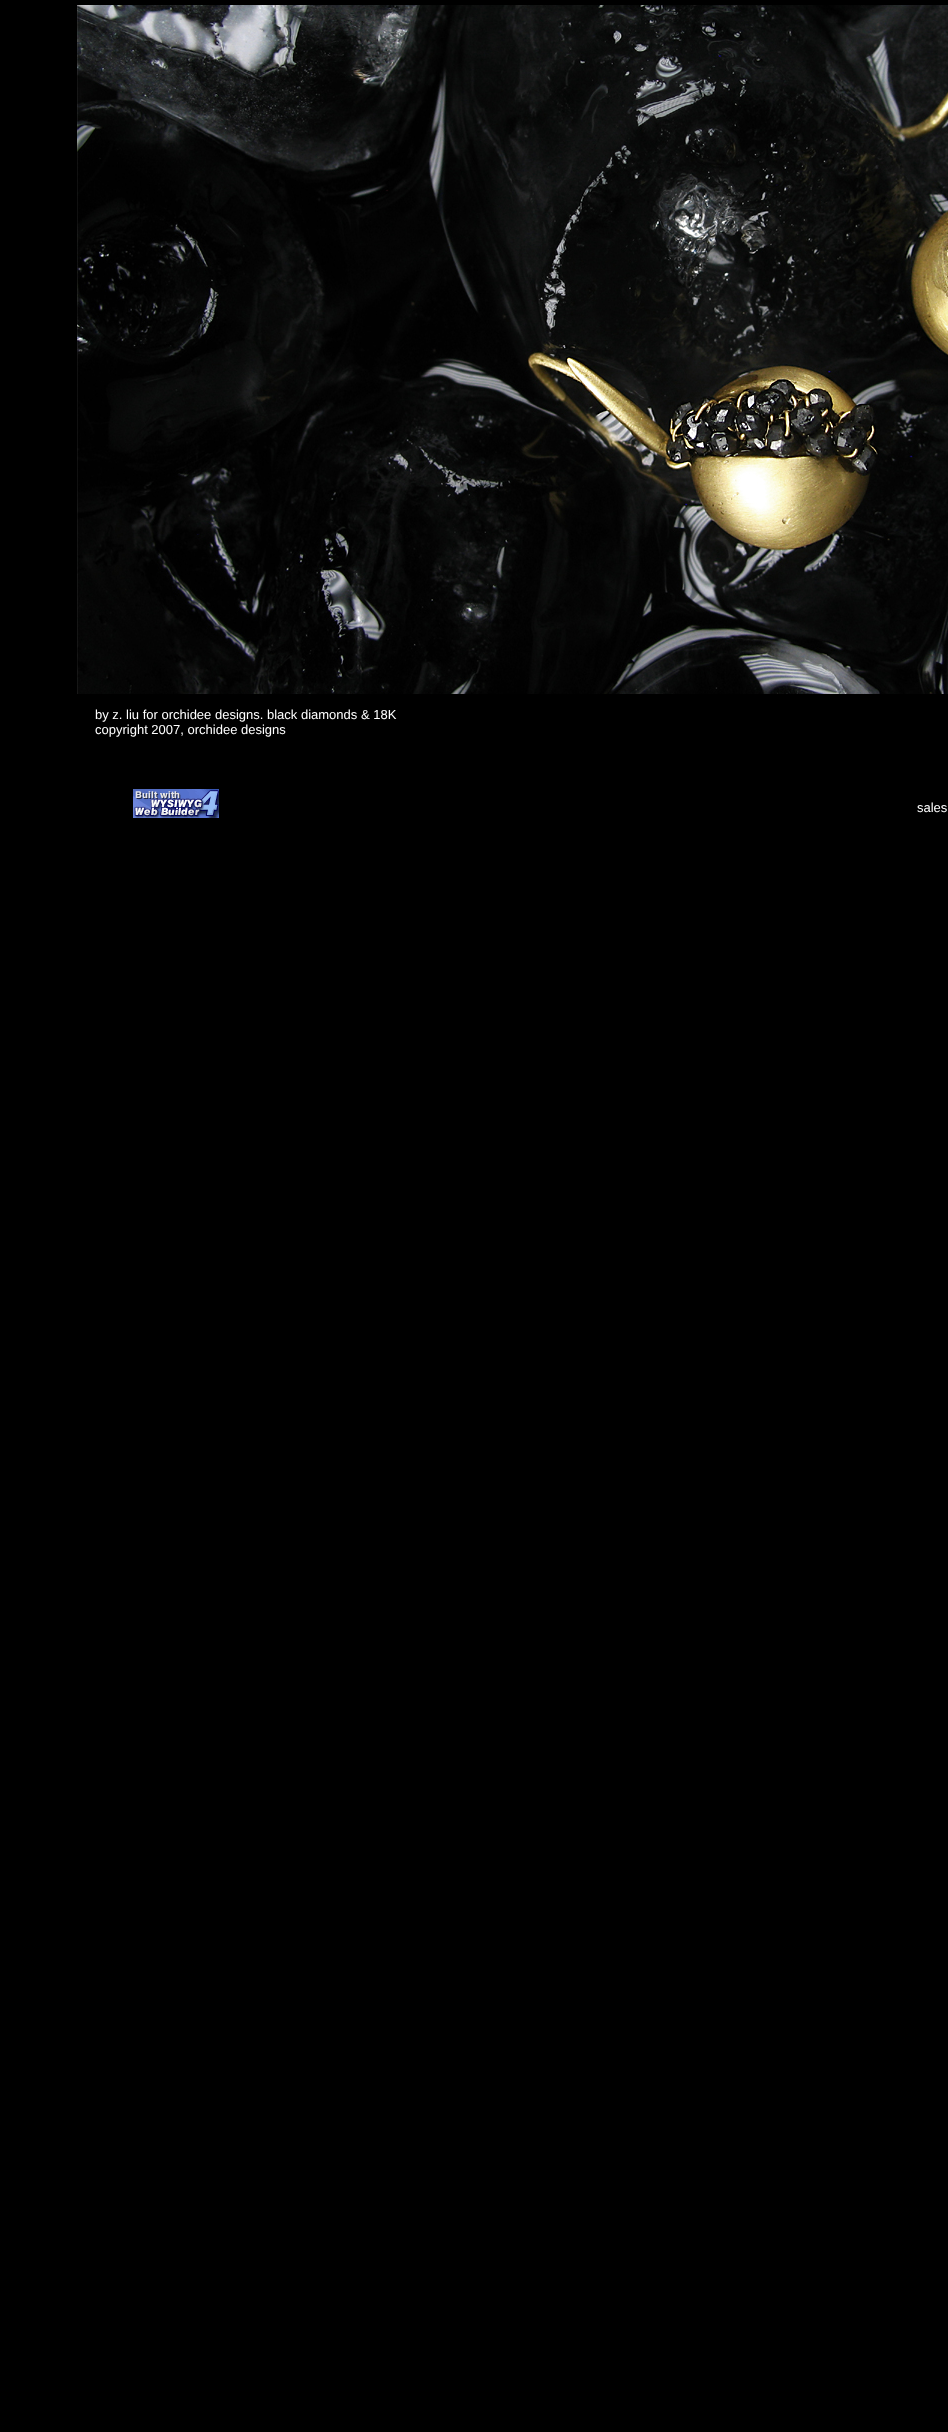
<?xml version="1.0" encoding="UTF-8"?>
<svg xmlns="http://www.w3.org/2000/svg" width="948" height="2432">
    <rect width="100%" height="100%" fill="#000000"/>
    <image x="77" y="5" width="871" height="689" href="img_01.png"/>
    <text font-family="Liberation Sans" font-size="13" fill="#FFFFFF">
        <tspan x="95" y="719">by z. liu for orchidee designs. black diamonds &amp; 18K</tspan>
        <tspan x="95" y="734">copyright 2007, orchidee designs</tspan>
    </text>
    <image x="133" y="789" width="86" height="29" href="img_02.png"/>
    <text x="917" y="812" font-family="Liberation Sans" font-size="13" fill="#FFFFFF">sales</text>
</svg>
